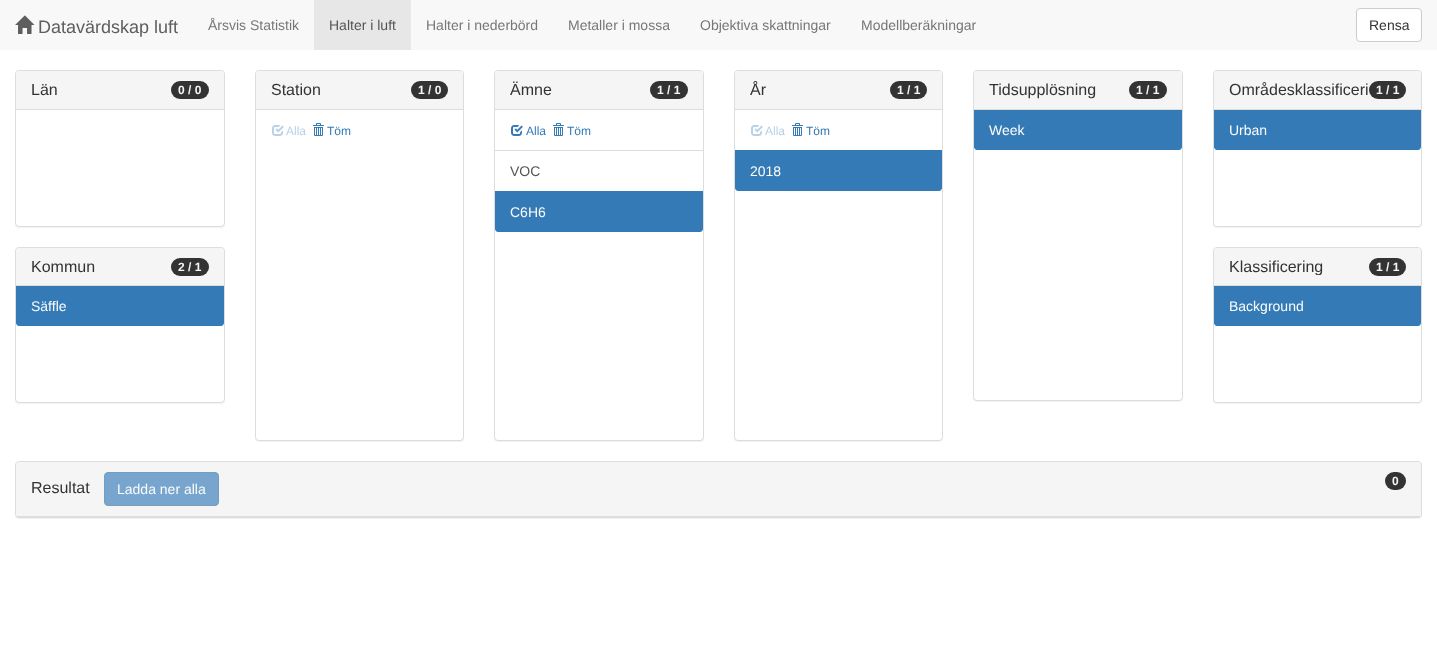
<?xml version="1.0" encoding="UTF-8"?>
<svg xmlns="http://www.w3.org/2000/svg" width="1437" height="658">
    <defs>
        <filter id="blur1" x="-50%" y="-200%" width="200%" height="500%"><feGaussianBlur stdDeviation="0.5"/></filter>
        <clipPath id="clip1"><rect x="1229" y="258" width="140" height="17"/></clipPath>
    </defs>
    <rect width="100%" height="100%" fill="#FFFFFF"/>
    <rect x="0" y="0" width="1437" height="50" fill="#F8F8F8"/>
    <image x="15" y="15" width="20" height="19" href="img_01.png"/>
    <text x="38" y="33" font-family="Liberation Sans" font-size="18" fill="#5E5E5E">Datavärdskap luft</text>
    <text x="208" y="30" font-family="Liberation Sans" font-size="14" fill="#777777">Årsvis Statistik</text>
    <rect x="314" y="0" width="97" height="50" fill="#E7E7E7"/>
    <text x="329" y="30" font-family="Liberation Sans" font-size="14" fill="#555555">Halter i luft</text>
    <text x="426" y="30" font-family="Liberation Sans" font-size="14" fill="#777777">Halter i nederbörd</text>
    <text x="568" y="30" font-family="Liberation Sans" font-size="14" fill="#777777">Metaller i mossa</text>
    <text x="700" y="30" font-family="Liberation Sans" font-size="14" fill="#777777">Objektiva skattningar</text>
    <text x="861" y="30" font-family="Liberation Sans" font-size="14" fill="#777777">Modellberäkningar</text>
    <rect x="1356.5" y="8.5" width="65" height="33" rx="3.5" fill="#FFFFFF" stroke="#CCCCCC"/>
    <text x="1369" y="30" font-family="Liberation Sans" font-size="14" fill="#333333">Rensa</text>
    <rect x="15" y="71" width="210" height="157" rx="4" fill="#000000" fill-opacity="0.05" filter="url(#blur1)"/>
    <rect x="15.5" y="70.5" width="209" height="156" rx="3.5" fill="#FFFFFF" stroke="#DDDDDD"/>
    <path d="M 19 71 H 221 C 222.5 71 224 72.5 224 74 V 110 H 16 V 74 C 16 72.5 17.5 71 19 71 Z" fill="#F5F5F5"/>
    <rect x="16" y="109" width="208" height="1" fill="#DDDDDD"/>
    <text x="31" y="95" font-family="Liberation Sans" font-size="16" fill="#333333">Län</text>
    <rect x="171" y="81" width="38" height="18" rx="9" fill="#333333"/>
    <text x="178" y="94" font-family="Liberation Sans" font-size="12" font-weight="700" fill="#F5F5F5">0 / 0</text>
    <rect x="15" y="248" width="210" height="156" rx="4" fill="#000000" fill-opacity="0.05" filter="url(#blur1)"/>
    <rect x="15.5" y="247.5" width="209" height="155" rx="3.5" fill="#FFFFFF" stroke="#DDDDDD"/>
    <path d="M 19 248 H 221 C 222.5 248 224 249.5 224 251 V 286 H 16 V 251 C 16 249.5 17.5 248 19 248 Z" fill="#F5F5F5"/>
    <rect x="16" y="285" width="208" height="1" fill="#DDDDDD"/>
    <text x="31" y="272" font-family="Liberation Sans" font-size="16" fill="#333333">Kommun</text>
    <rect x="171" y="258" width="38" height="18" rx="9" fill="#333333"/>
    <text x="178" y="271" font-family="Liberation Sans" font-size="12" font-weight="700" fill="#F5F5F5">2 / 1</text>
    <path d="M 16 286 H 224 V 323 C 224 324.5 222.5 326 221 326 H 19 C 17.5 326 16 324.5 16 323 Z" fill="#337AB7"/>
    <text x="31" y="311" font-family="Liberation Sans" font-size="14" fill="#FCFCFC">Säffle</text>
    <rect x="255" y="71" width="209" height="371" rx="4" fill="#000000" fill-opacity="0.05" filter="url(#blur1)"/>
    <rect x="255.5" y="70.5" width="208" height="370" rx="3.5" fill="#FFFFFF" stroke="#DDDDDD"/>
    <path d="M 259 71 H 460 C 461.5 71 463 72.5 463 74 V 110 H 256 V 74 C 256 72.5 257.5 71 259 71 Z" fill="#F5F5F5"/>
    <rect x="256" y="109" width="207" height="1" fill="#DDDDDD"/>
    <text x="271" y="95" font-family="Liberation Sans" font-size="16" fill="#333333">Station</text>
    <rect x="411" y="81" width="37" height="18" rx="9" fill="#333333"/>
    <text x="418" y="94" font-family="Liberation Sans" font-size="12" font-weight="700" fill="#F5F5F5">1 / 0</text>
    <image x="272" y="125" width="12" height="11" href="img_02.png"/>
    <text x="286" y="135" font-family="Liberation Sans" font-size="12" fill="#B8D0E6">Alla</text>
    <image x="313" y="123" width="11" height="13" href="img_03.png"/>
    <text x="327" y="135" font-family="Liberation Sans" font-size="12" fill="#337AB7">Töm</text>
    <rect x="494" y="71" width="210" height="371" rx="4" fill="#000000" fill-opacity="0.05" filter="url(#blur1)"/>
    <rect x="494.5" y="70.5" width="209" height="370" rx="3.5" fill="#FFFFFF" stroke="#DDDDDD"/>
    <path d="M 498 71 H 700 C 701.5 71 703 72.5 703 74 V 110 H 495 V 74 C 495 72.5 496.5 71 498 71 Z" fill="#F5F5F5"/>
    <rect x="495" y="109" width="208" height="1" fill="#DDDDDD"/>
    <text x="510" y="95" font-family="Liberation Sans" font-size="16" fill="#333333">Ämne</text>
    <rect x="650" y="81" width="38" height="18" rx="9" fill="#333333"/>
    <text x="657" y="94" font-family="Liberation Sans" font-size="12" font-weight="700" fill="#F5F5F5">1 / 1</text>
    <image x="511" y="125" width="12" height="11" href="img_04.png"/>
    <text x="526" y="135" font-family="Liberation Sans" font-size="12" fill="#337AB7">Alla</text>
    <image x="553" y="123" width="11" height="13" href="img_03.png"/>
    <text x="567" y="135" font-family="Liberation Sans" font-size="12" fill="#337AB7">Töm</text>
    <rect x="495" y="150" width="208" height="1" fill="#DDDDDD"/>
    <text x="510" y="176" font-family="Liberation Sans" font-size="14" fill="#555555">VOC</text>
    <path d="M 495 191 H 703 V 229 C 703 230.5 701.5 232 700 232 H 498 C 496.5 232 495 230.5 495 229 Z" fill="#337AB7"/>
    <text x="510" y="217" font-family="Liberation Sans" font-size="14" fill="#FCFCFC">C6H6</text>
    <rect x="734" y="71" width="209" height="371" rx="4" fill="#000000" fill-opacity="0.05" filter="url(#blur1)"/>
    <rect x="734.5" y="70.5" width="208" height="370" rx="3.5" fill="#FFFFFF" stroke="#DDDDDD"/>
    <path d="M 738 71 H 939 C 940.5 71 942 72.5 942 74 V 110 H 735 V 74 C 735 72.5 736.5 71 738 71 Z" fill="#F5F5F5"/>
    <rect x="735" y="109" width="207" height="1" fill="#DDDDDD"/>
    <text x="750" y="95" font-family="Liberation Sans" font-size="16" fill="#333333">År</text>
    <rect x="890" y="81" width="37" height="18" rx="9" fill="#333333"/>
    <text x="897" y="94" font-family="Liberation Sans" font-size="12" font-weight="700" fill="#F5F5F5">1 / 1</text>
    <image x="751" y="125" width="12" height="11" href="img_02.png"/>
    <text x="765" y="135" font-family="Liberation Sans" font-size="12" fill="#B8D0E6">Alla</text>
    <image x="792" y="123" width="11" height="13" href="img_03.png"/>
    <text x="806" y="135" font-family="Liberation Sans" font-size="12" fill="#337AB7">Töm</text>
    <path d="M 735 150 H 942 V 188 C 942 189.5 940.5 191 939 191 H 738 C 736.5 191 735 189.5 735 188 Z" fill="#337AB7"/>
    <text x="750" y="176" font-family="Liberation Sans" font-size="14" fill="#FCFCFC">2018</text>
    <rect x="973" y="71" width="210" height="331" rx="4" fill="#000000" fill-opacity="0.05" filter="url(#blur1)"/>
    <rect x="973.5" y="70.5" width="209" height="330" rx="3.5" fill="#FFFFFF" stroke="#DDDDDD"/>
    <path d="M 977 71 H 1179 C 1180.5 71 1182 72.5 1182 74 V 110 H 974 V 74 C 974 72.5 975.5 71 977 71 Z" fill="#F5F5F5"/>
    <rect x="974" y="109" width="208" height="1" fill="#DDDDDD"/>
    <text x="989" y="95" font-family="Liberation Sans" font-size="16" fill="#333333">Tidsupplösning</text>
    <rect x="1129" y="81" width="38" height="18" rx="9" fill="#333333"/>
    <text x="1136" y="94" font-family="Liberation Sans" font-size="12" font-weight="700" fill="#F5F5F5">1 / 1</text>
    <path d="M 974 110 H 1182 V 147 C 1182 148.5 1180.5 150 1179 150 H 977 C 975.5 150 974 148.5 974 147 Z" fill="#337AB7"/>
    <text x="989" y="135" font-family="Liberation Sans" font-size="14" fill="#FCFCFC">Week</text>
    <rect x="1213" y="71" width="209" height="157" rx="4" fill="#000000" fill-opacity="0.05" filter="url(#blur1)"/>
    <rect x="1213.5" y="70.5" width="208" height="156" rx="3.5" fill="#FFFFFF" stroke="#DDDDDD"/>
    <path d="M 1217 71 H 1418 C 1419.5 71 1421 72.5 1421 74 V 110 H 1214 V 74 C 1214 72.5 1215.5 71 1217 71 Z" fill="#F5F5F5"/>
    <rect x="1214" y="109" width="207" height="1" fill="#DDDDDD"/>
    <text x="1229" y="95" font-family="Liberation Sans" font-size="16" fill="#333333">Områdesklassificeri</text>
    <rect x="1369" y="81" width="37" height="18" rx="9" fill="#333333"/>
    <text x="1376" y="94" font-family="Liberation Sans" font-size="12" font-weight="700" fill="#F5F5F5">1 / 1</text>
    <path d="M 1214 110 H 1421 V 147 C 1421 148.5 1419.5 150 1418 150 H 1217 C 1215.5 150 1214 148.5 1214 147 Z" fill="#337AB7"/>
    <text x="1229" y="135" font-family="Liberation Sans" font-size="14" fill="#FCFCFC">Urban</text>
    <rect x="1213" y="248" width="209" height="156" rx="4" fill="#000000" fill-opacity="0.05" filter="url(#blur1)"/>
    <rect x="1213.5" y="247.5" width="208" height="155" rx="3.5" fill="#FFFFFF" stroke="#DDDDDD"/>
    <path d="M 1217 248 H 1418 C 1419.5 248 1421 249.5 1421 251 V 286 H 1214 V 251 C 1214 249.5 1215.5 248 1217 248 Z" fill="#F5F5F5"/>
    <rect x="1214" y="285" width="207" height="1" fill="#DDDDDD"/>
    <g clip-path="url(#clip1)">
        <text x="1229" y="272" font-family="Liberation Sans" font-size="16" fill="#333333">Klassificering</text>
    </g>
    <rect x="1369" y="258" width="37" height="18" rx="9" fill="#333333"/>
    <text x="1376" y="271" font-family="Liberation Sans" font-size="12" font-weight="700" fill="#F5F5F5">1 / 1</text>
    <path d="M 1214 286 H 1421 V 323 C 1421 324.5 1419.5 326 1418 326 H 1217 C 1215.5 326 1214 324.5 1214 323 Z" fill="#337AB7"/>
    <text x="1229" y="311" font-family="Liberation Sans" font-size="14" fill="#FCFCFC">Background</text>
    <rect x="15" y="462" width="1407" height="57" rx="4" fill="#000000" fill-opacity="0.05" filter="url(#blur1)"/>
    <rect x="15.5" y="461.5" width="1406" height="56" rx="3.5" fill="none" stroke="#DDDDDD"/>
    <path d="M 19 462 H 1418 C 1419.5 462 1421 463.5 1421 465 V 517 H 16 V 465 C 16 463.5 17.5 462 19 462 Z" fill="#F5F5F5"/>
    <rect x="16" y="516" width="1405" height="1" fill="#DDDDDD"/>
    <text x="31" y="493" font-family="Liberation Sans" font-size="16" fill="#333333">Resultat</text>
    <rect x="104.5" y="472.5" width="114" height="33" rx="3.5" fill="#77A5CD" stroke="#749DC0"/>
    <text x="117" y="494" font-family="Liberation Sans" font-size="14" fill="#FCFCFC">Ladda ner alla</text>
    <rect x="1385" y="472" width="21" height="18" rx="9" fill="#333333"/>
    <text x="1392" y="485" font-family="Liberation Sans" font-size="12" font-weight="700" fill="#F5F5F5">0</text>
</svg>
